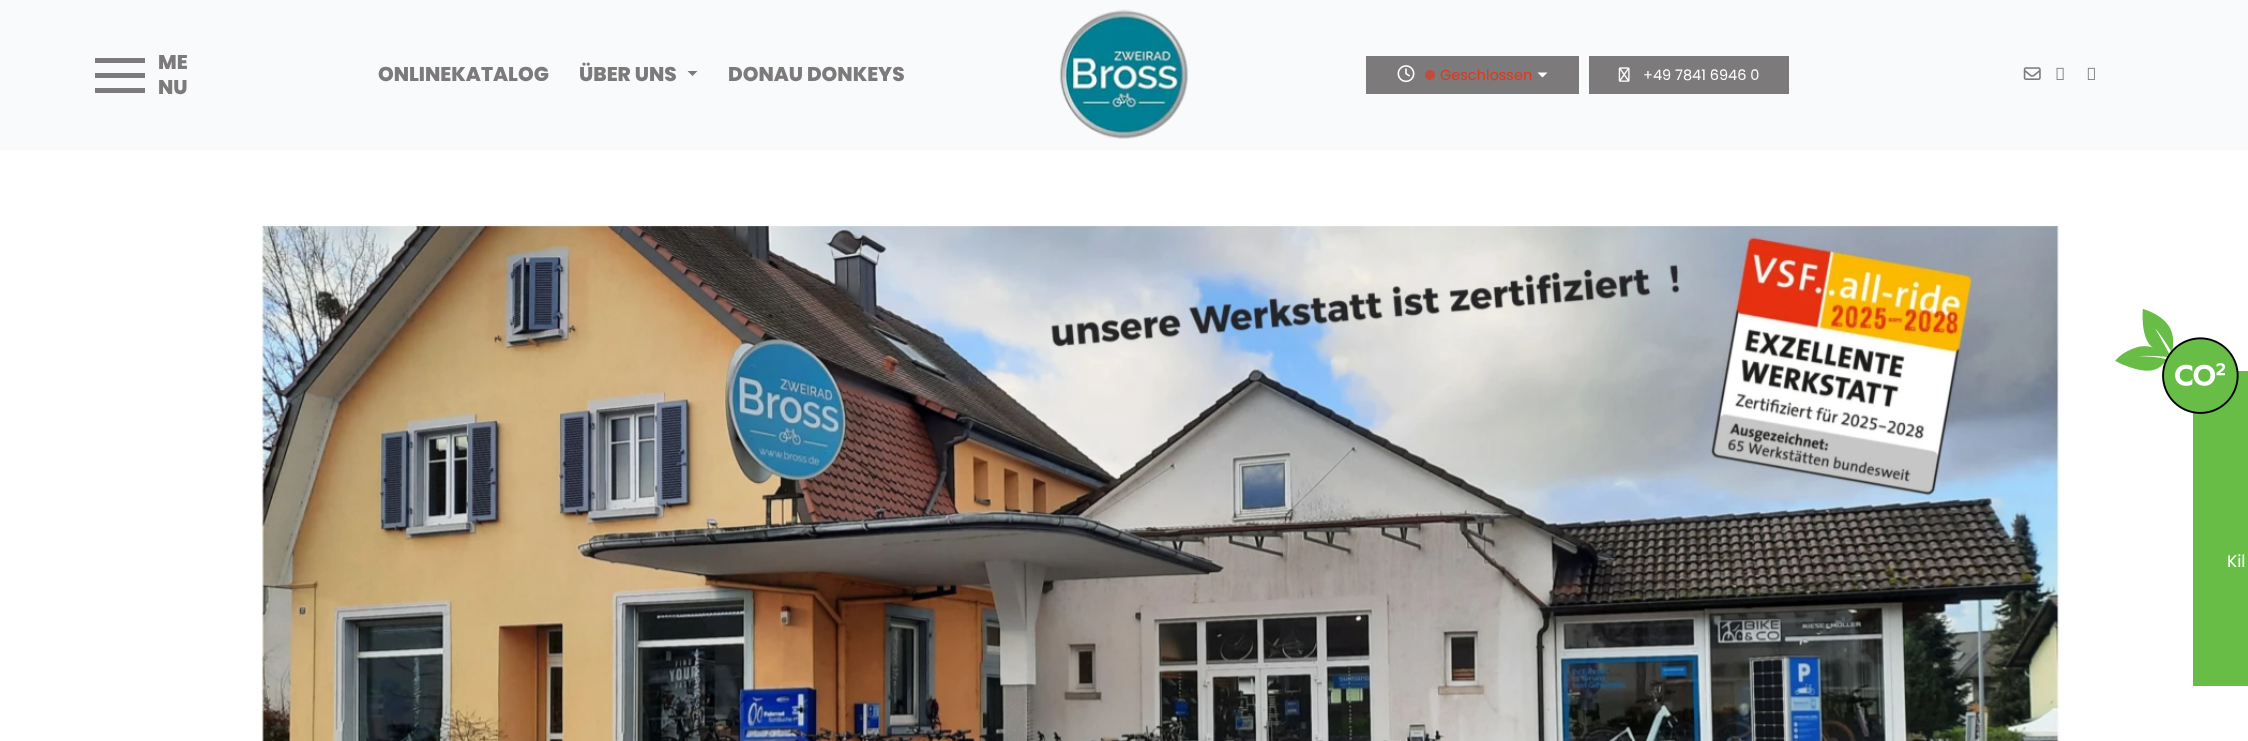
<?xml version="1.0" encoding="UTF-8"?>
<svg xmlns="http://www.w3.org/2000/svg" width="2248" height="741">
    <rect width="100%" height="100%" fill="#FFFFFF"/>
    <rect x="0" y="0" width="2248" height="150" fill="#F9FAFB"/>
    <rect x="95" y="73" width="50" height="5" fill="#7C7A7B"/>
    <rect x="95" y="58" width="50" height="5" fill="#7C7A7B"/>
    <rect x="95" y="88" width="50" height="5" fill="#7C7A7B"/>
    <text font-family="Poppins" font-size="20" font-weight="800" fill="#7C7A7B">
        <tspan x="158" y="69">ME</tspan>
        <tspan x="158" y="94">NU</tspan>
    </text>
    <text x="378" y="81" font-family="Poppins" font-size="20" font-weight="800" fill="#7C7A7B">ONLINEKATALOG</text>
    <text x="579" y="81" font-family="Poppins" font-size="20" font-weight="800" fill="#7C7A7B">ÜBER UNS</text>
    <path d="M 687.5 71 H 697.5 L 692.5 76 Z" fill="#7C7A7B"/>
    <text x="728" y="81" font-family="Poppins" font-size="20" font-weight="800" fill="#7C7A7B">DONAU DONKEYS</text>
    <image x="1059" y="9" width="130" height="130" href="img_01.png"/>
    <rect x="1366" y="56" width="213" height="38" fill="#7C7A7B"/>
    <image x="1397" y="65" width="18" height="18" href="img_02.png"/>
    <circle cx="1430" cy="75" r="5" fill="#C34B39"/>
    <text x="1440" y="80" font-family="Poppins" font-size="14.5" fill="#E2371C">Geschlossen</text>
    <path d="M 1537.5 72.5 H 1547.5 L 1542.5 77.5 Z" fill="#FFFFFF"/>
    <rect x="1589" y="56" width="200" height="38" fill="#7C7A7B"/>
    <image x="1618" y="67" width="12" height="15" href="img_03.png"/>
    <text x="1643" y="80" font-family="Poppins" font-size="14.5" fill="#FFFFFF">+49 7841 6946 0</text>
    <image x="2023" y="67" width="18" height="13" href="img_04.png"/>
    <image x="2056" y="67" width="8" height="13" href="img_05.png"/>
    <image x="2087" y="67" width="8" height="13" href="img_06.png"/>
    <image x="260" y="223" width="1800" height="518" href="img_07.png"/>
    <rect x="2193" y="371" width="55" height="315" fill="#67BD46"/>
    <image x="2115" y="309" width="124" height="105" href="img_08.png"/>
    <text x="2227" y="567" font-family="Poppins" font-size="17" fill="#FFFFFF">Kil</text>
</svg>
